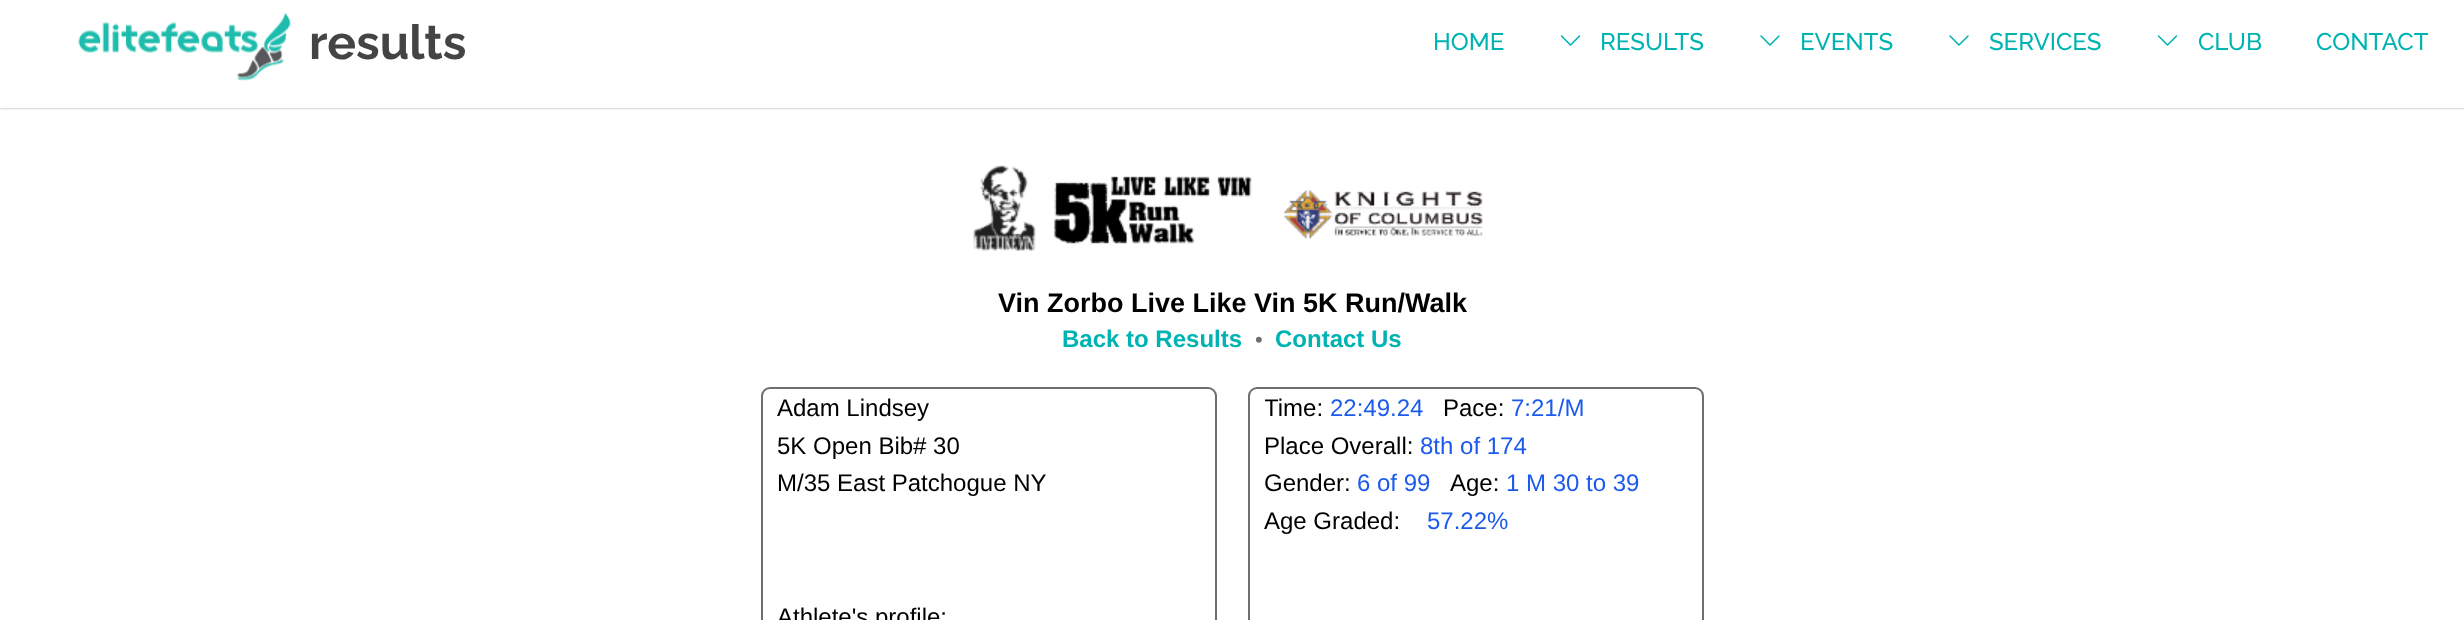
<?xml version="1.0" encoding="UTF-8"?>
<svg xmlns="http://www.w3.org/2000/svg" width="2464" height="620">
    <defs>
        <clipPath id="clip1"><rect x="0" y="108" width="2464" height="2"/></clipPath>
        <filter id="blur1" x="-50%" y="-200%" width="200%" height="500%"><feGaussianBlur stdDeviation="1.5"/></filter>
        <clipPath id="clip2"><rect x="1265" y="393" width="430" height="33"/></clipPath>
    </defs>
    <rect width="100%" height="100%" fill="#FFFFFF"/>
    <g clip-path="url(#clip1)">
        <rect x="0" y="0" width="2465" height="108" fill="#000000" fill-opacity="0.35" filter="url(#blur1)"/>
    </g>
    <image x="78" y="12" width="213" height="69" href="img_01.png"/>
    <text x="309" y="59" font-family="Raleway" font-size="48" font-weight="700" fill="#444444">results</text>
    <text x="1433" y="50" font-family="Raleway" font-size="24" font-weight="500" fill="#00B3B3">HOME</text>
    <image x="1560" y="35" width="21" height="11" href="img_02.png"/>
    <text x="1600" y="50" font-family="Raleway" font-size="24" font-weight="500" fill="#00B3B3">RESULTS</text>
    <image x="1760" y="35" width="20" height="11" href="img_03.png"/>
    <text x="1800" y="50" font-family="Raleway" font-size="24" font-weight="500" fill="#00B3B3">EVENTS</text>
    <image x="1949" y="35" width="20" height="11" href="img_03.png"/>
    <text x="1989" y="50" font-family="Raleway" font-size="24" font-weight="500" fill="#00B3B3">SERVICES</text>
    <image x="2157" y="35" width="21" height="11" href="img_02.png"/>
    <text x="2198" y="50" font-family="Raleway" font-size="24" font-weight="500" fill="#00B3B3">CLUB</text>
    <text x="2316" y="50" font-family="Raleway" font-size="24" font-weight="500" fill="#00B3B3">CONTACT</text>
    <image x="973" y="165" width="510" height="86" href="img_04.png"/>
    <text x="998" y="312" font-family="Liberation Sans" font-size="27" font-weight="700" fill="#000000">Vin Zorbo Live Like Vin 5K Run/Walk</text>
    <text x="1062" y="347" font-family="Liberation Sans" font-size="24" font-weight="700" fill="#00B3B3">Back to Results</text>
    <text x="1255" y="347" font-family="Liberation Sans" font-size="22" fill="#6D6E70">•</text>
    <text x="1275" y="347" font-family="Liberation Sans" font-size="24" font-weight="700" fill="#00B3B3">Contact Us</text>
    <rect x="762" y="388" width="454" height="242" rx="8" fill="none" stroke="#6D6E70" stroke-width="2"/>
    <text font-family="Liberation Sans" font-size="24" fill="#000000">
        <tspan x="777" y="416">Adam Lindsey</tspan>
        <tspan x="777" y="454">5K Open Bib# 30</tspan>
        <tspan x="777" y="491">M/35 East Patchogue NY</tspan>
    </text>
    <text x="777" y="625" font-family="Liberation Sans" font-size="24" fill="#000000">Athlete's profile:</text>
    <rect x="1249" y="388" width="454" height="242" rx="8" fill="none" stroke="#6D6E70" stroke-width="2"/>
    <g clip-path="url(#clip2)">
        <text x="1264" y="416" font-family="Liberation Sans" font-size="24" fill="#000000">Time:</text>
    </g>
    <text x="1330" y="416" font-family="Liberation Sans" font-size="24" fill="#1B5AEC">22:49.24</text>
    <text x="1443" y="416" font-family="Liberation Sans" font-size="24" fill="#000000">Pace:</text>
    <text x="1511" y="416" font-family="Liberation Sans" font-size="24" fill="#1B5AEC">7:21/M</text>
    <text x="1264" y="454" font-family="Liberation Sans" font-size="24" fill="#000000">Place Overall:</text>
    <text x="1420" y="454" font-family="Liberation Sans" font-size="24" fill="#1B5AEC">8th of 174</text>
    <text x="1264" y="491" font-family="Liberation Sans" font-size="24" fill="#000000">Gender:</text>
    <text x="1357" y="491" font-family="Liberation Sans" font-size="24" fill="#1B5AEC">6 of 99</text>
    <text x="1450" y="491" font-family="Liberation Sans" font-size="24" fill="#000000">Age:</text>
    <text x="1506" y="491" font-family="Liberation Sans" font-size="24" fill="#1B5AEC">1 M 30 to 39</text>
    <text x="1264" y="529" font-family="Liberation Sans" font-size="24" fill="#000000">Age Graded:</text>
    <text x="1427" y="529" font-family="Liberation Sans" font-size="24" fill="#1B5AEC">57.22%</text>
</svg>
